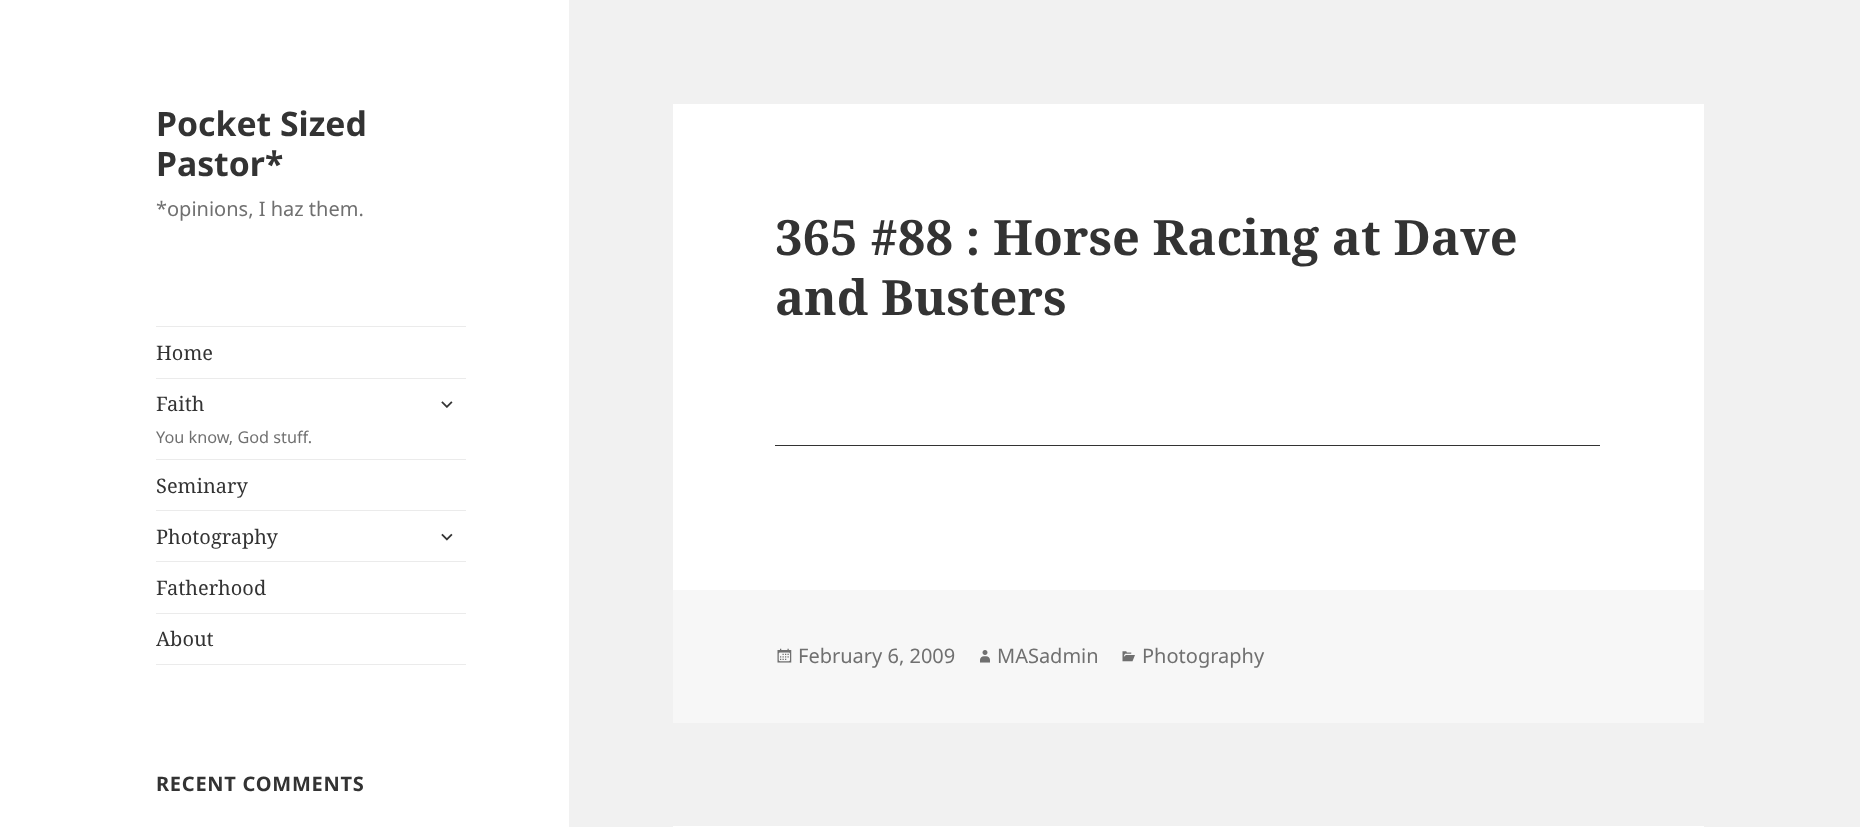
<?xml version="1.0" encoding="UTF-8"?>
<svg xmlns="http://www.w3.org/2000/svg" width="1860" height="827">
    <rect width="100%" height="100%" fill="#F1F1F1"/>
    <rect x="0" y="0" width="569" height="827" fill="#FFFFFF"/>
    <text font-family="Noto Sans" font-size="33.75" font-weight="700" fill="#333333">
        <tspan x="156" y="136">Pocket Sized</tspan>
        <tspan x="156" y="176">Pastor*</tspan>
    </text>
    <text x="156" y="216" font-family="Noto Sans" font-size="20" fill="#707070">*opinions, I haz them.</text>
    <rect x="156" y="326" width="310" height="1" fill="#EBEBEB"/>
    <rect x="156" y="664" width="310" height="1" fill="#EBEBEB"/>
    <text x="156" y="360" font-family="Noto Serif" font-size="20" fill="#333333">Home</text>
    <rect x="156" y="378" width="310" height="1" fill="#EBEBEB"/>
    <text x="156" y="411" font-family="Noto Serif" font-size="20" fill="#333333">Faith</text>
    <text x="156" y="443" font-family="Noto Sans" font-size="16.25" fill="#707070">You know, God stuff.</text>
    <image x="441" y="401" width="12" height="7" href="img_01.png"/>
    <rect x="156" y="459" width="310" height="1" fill="#EBEBEB"/>
    <text x="156" y="493" font-family="Noto Serif" font-size="20" fill="#333333">Seminary</text>
    <rect x="156" y="510" width="310" height="1" fill="#EBEBEB"/>
    <text x="156" y="544" font-family="Noto Serif" font-size="20" fill="#333333">Photography</text>
    <image x="441" y="533" width="12" height="8" href="img_02.png"/>
    <rect x="156" y="561" width="310" height="1" fill="#EBEBEB"/>
    <text x="156" y="595" font-family="Noto Serif" font-size="20" fill="#333333">Fatherhood</text>
    <rect x="156" y="613" width="310" height="1" fill="#EBEBEB"/>
    <text x="156" y="646" font-family="Noto Serif" font-size="20" fill="#333333">About</text>
    <text x="156" y="791" font-family="Noto Sans" font-size="20" font-weight="700" letter-spacing="0.75" fill="#333333">RECENT COMMENTS</text>
    <rect x="673" y="104" width="1031" height="486" fill="#FFFFFF"/>
    <text font-family="Noto Serif" font-size="48.75" font-weight="700" fill="#333333">
        <tspan x="775" y="255">365 #88 : Horse Racing at Dave</tspan>
        <tspan x="775" y="315">and Busters</tspan>
    </text>
    <rect x="775" y="445" width="825" height="1" fill="#333333"/>
    <rect x="673" y="590" width="1031" height="133" fill="#F7F7F7"/>
    <image x="777" y="648" width="15" height="15" href="img_03.png"/>
    <text x="798" y="663" font-family="Noto Sans" font-size="20" fill="#707070">February 6, 2009</text>
    <image x="980" y="650" width="10" height="13" href="img_04.png"/>
    <text x="997" y="663" font-family="Noto Sans" font-size="20" fill="#707070">MASadmin</text>
    <image x="1122" y="651" width="13" height="11" href="img_05.png"/>
    <text x="1142" y="663" font-family="Noto Sans" font-size="20" fill="#707070">Photography</text>
    <rect x="673" y="826" width="1031" height="1" fill="#FFFFFF"/>
</svg>
